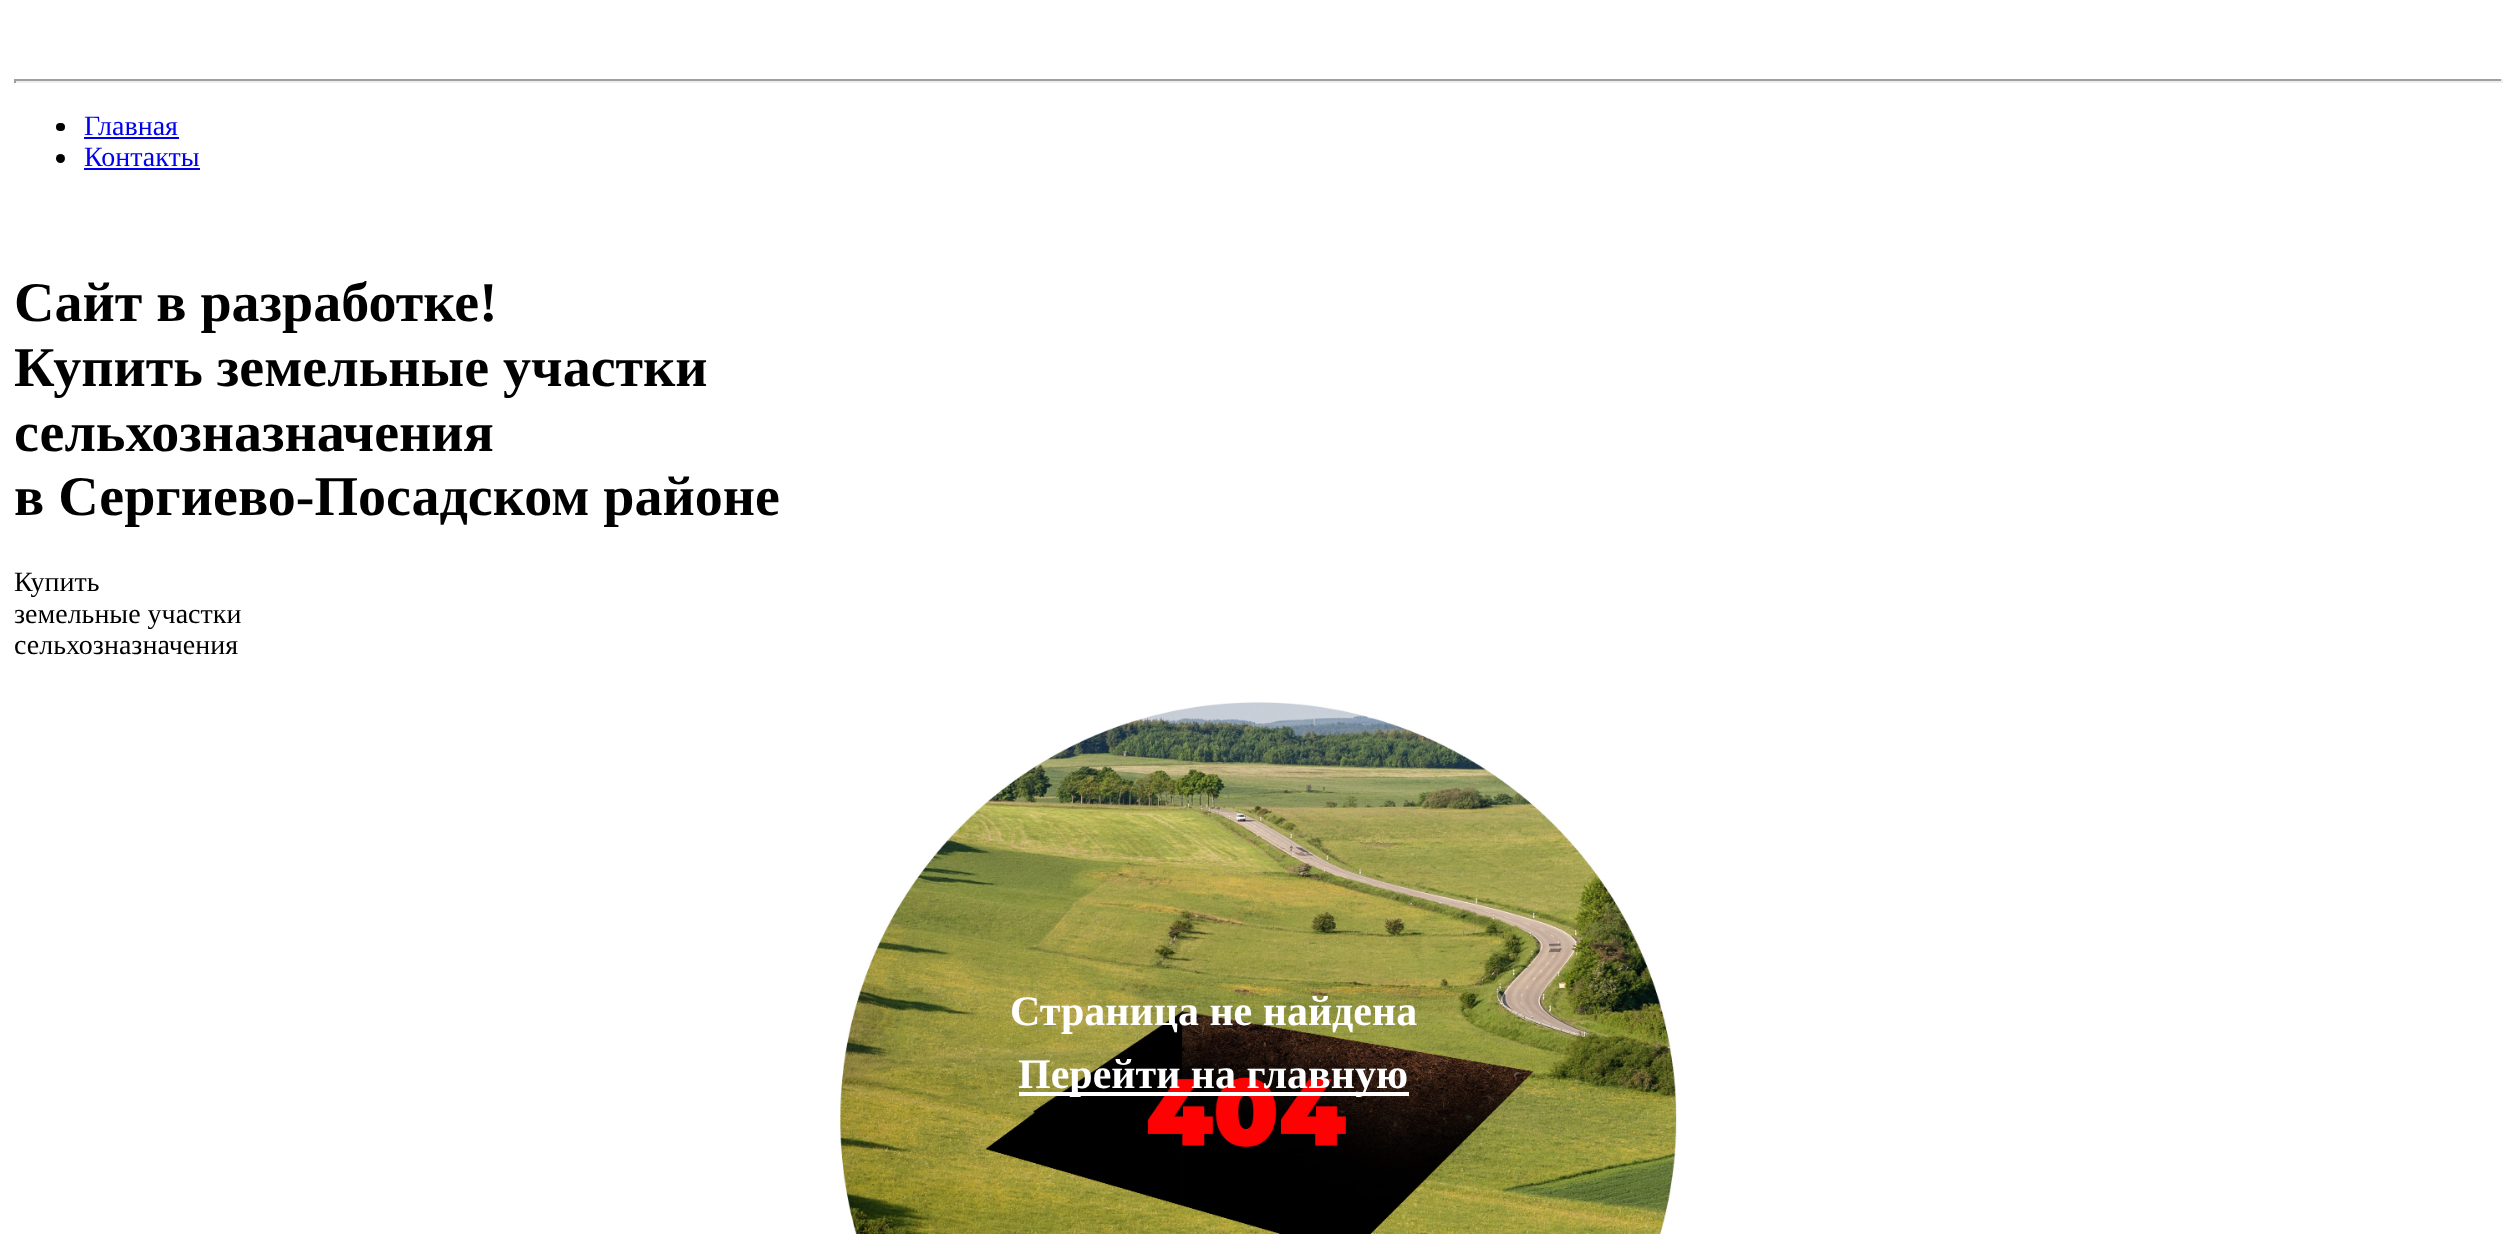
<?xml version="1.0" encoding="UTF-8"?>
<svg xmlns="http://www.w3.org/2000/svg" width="2515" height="1234">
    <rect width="100%" height="100%" fill="#FFFFFF"/>
    <rect x="14" y="79" width="2489" height="2" fill="#9F9F9F"/>
    <rect x="2501" y="79" width="2" height="4" fill="#EEEEEE"/>
    <rect x="14" y="81" width="2489" height="2" fill="#EEEEEE"/>
    <rect x="14" y="79" width="2" height="4" fill="#9F9F9F"/>
    <rect x="56" y="123" width="9" height="8" rx="4" fill="#000000"/>
    <text x="84" y="135" font-family="Liberation Serif" font-size="28" fill="#0000EE">Главная</text>
    <rect x="84" y="137" width="95" height="2" fill="#0000EE"/>
    <circle cx="60.5" cy="158.5" r="4.5" fill="#000000"/>
    <text x="84" y="166" font-family="Liberation Serif" font-size="28" fill="#0000EE">Контакты</text>
    <rect x="84" y="168" width="116" height="2" fill="#0000EE"/>
    <text font-family="Liberation Serif" font-size="56" font-weight="700" fill="#000000">
        <tspan x="14" y="321">Сайт в разработке!</tspan>
        <tspan x="14" y="386">Купить земельные участки</tspan>
        <tspan x="14" y="451">сельхозназначения</tspan>
        <tspan x="14" y="515">в Сергиево-Посадском районе</tspan>
    </text>
    <text font-family="Liberation Serif" font-size="28" fill="#000000">
        <tspan x="14" y="591">Купить</tspan>
        <tspan x="14" y="623">земельные участки</tspan>
        <tspan x="14" y="654">сельхозназначения</tspan>
    </text>
    <image x="840" y="702" width="838" height="532" href="img_01.png"/>
    <text x="1010" y="1025" font-family="Liberation Serif" font-size="42" font-weight="700" fill="#FFFFFF">Страница не найдена</text>
    <rect x="1019" y="1092" width="390" height="4" fill="#FFFFFF"/>
    <text x="1018" y="1088" font-family="Liberation Serif" font-size="42" font-weight="700" fill="#FFFFFF">Перейти на главную</text>
</svg>
